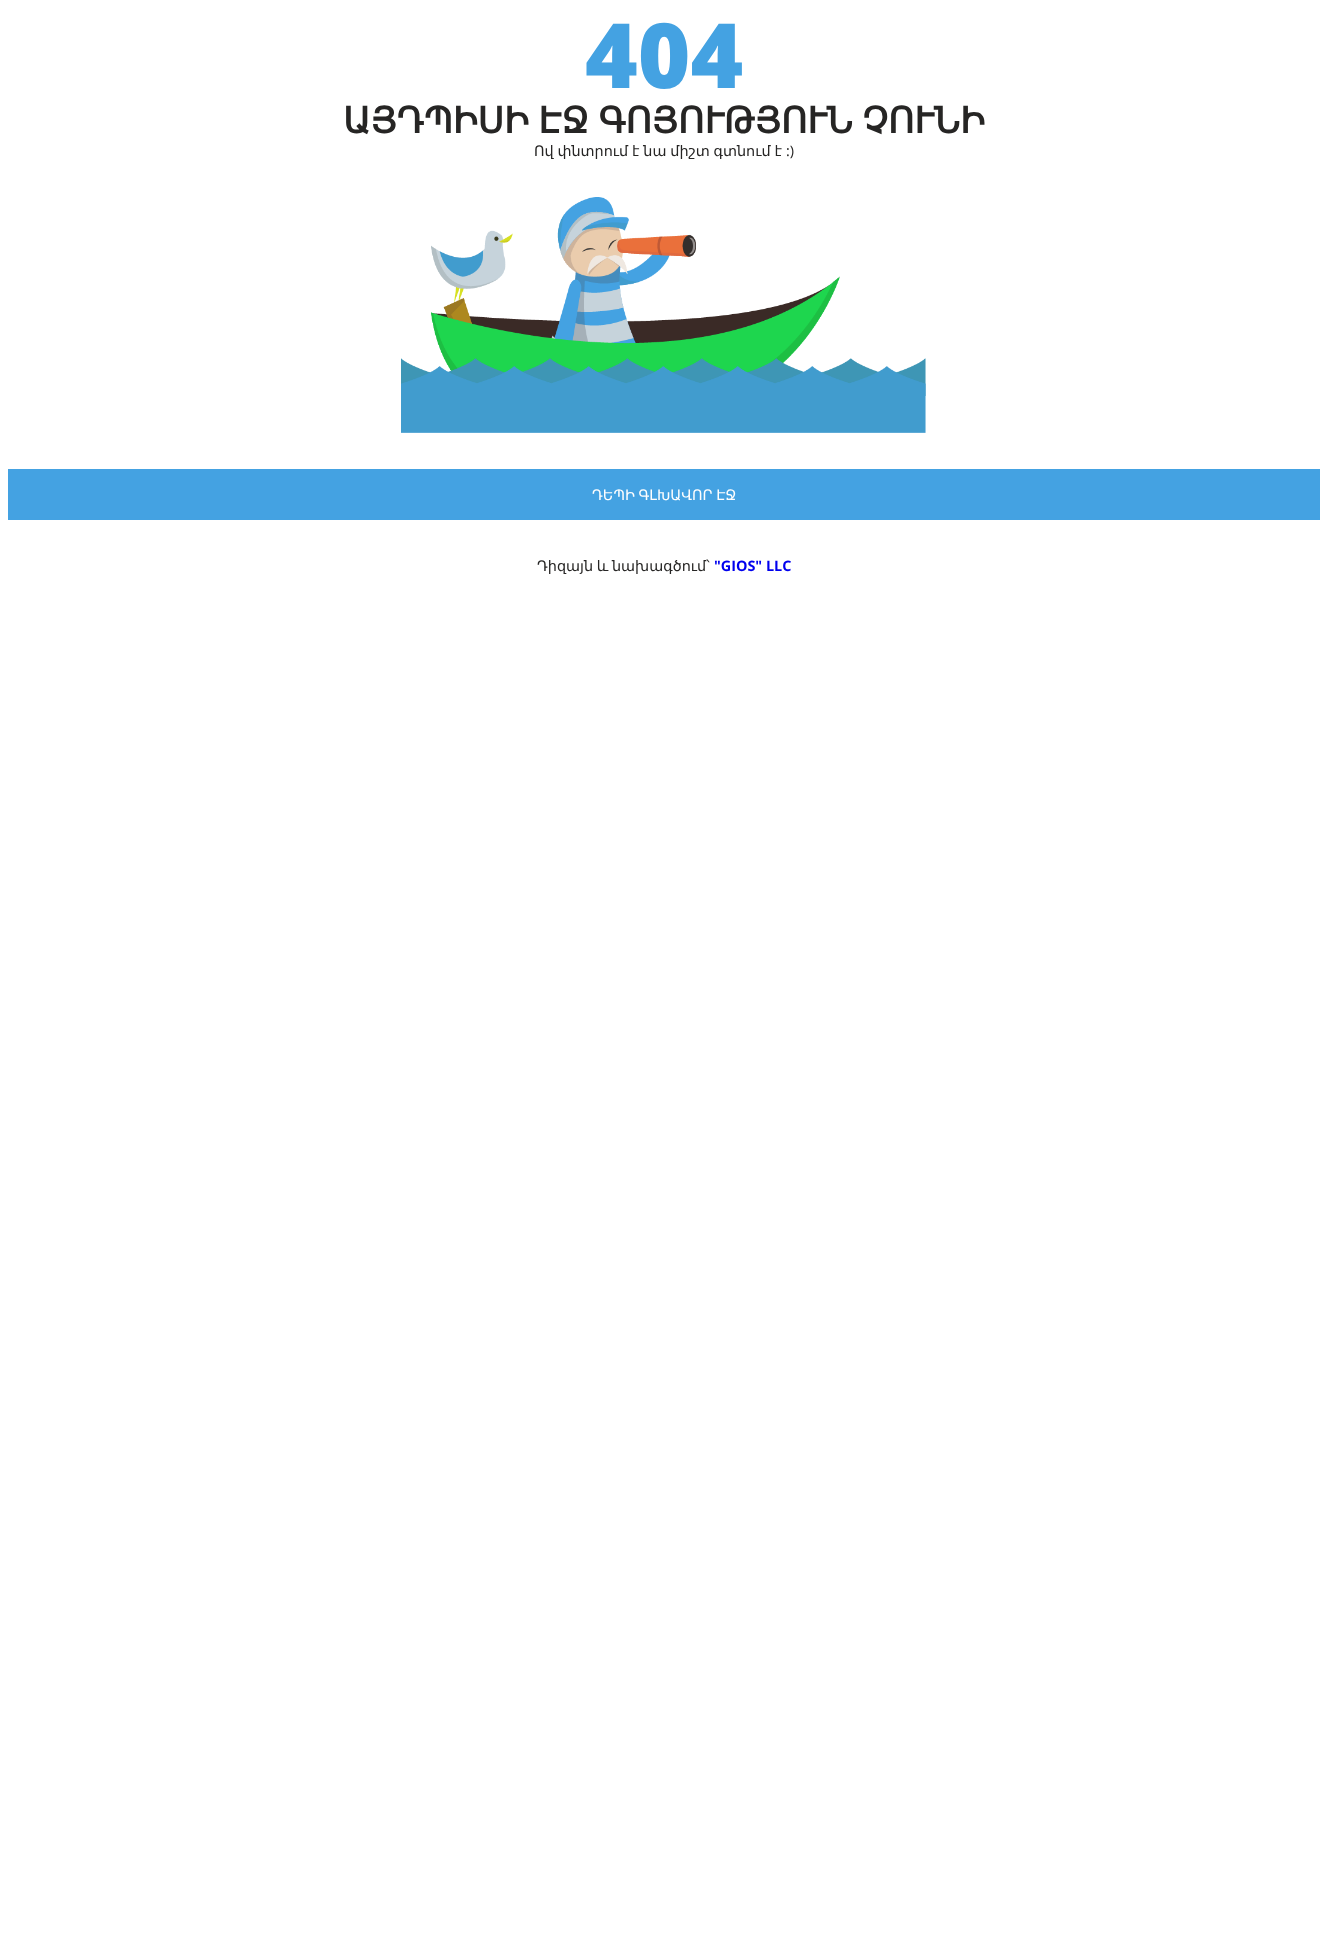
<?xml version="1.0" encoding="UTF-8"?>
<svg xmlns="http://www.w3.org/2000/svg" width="1328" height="1960">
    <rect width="100%" height="100%" fill="#FFFFFF"/>
    <text x="585" y="88" font-family="Open Sans" font-size="90" font-weight="800" fill="#44A2E2">404</text>
    <text x="343" y="133" word-spacing="-2" font-family="DejaVu Sans" font-size="36" font-weight="700" fill="#262524">ԱՅԴՊԻՍԻ ԷՋ ԳՈՅՈՒԹՅՈՒՆ ՉՈՒՆԻ</text>
    <text x="534" y="156" word-spacing="-0.75" font-family="DejaVu Sans" font-size="14.4" fill="#262524">Ով փնտրում է նա միշտ գտնում է</text>
    <text x="786" y="156" font-family="Open Sans" font-size="14.4" fill="#262524">:)</text>
    <image x="431" y="197" width="409" height="176" href="img_01.png"/>
    <image x="401" y="358" width="525" height="38" href="img_02.png"/>
    <image x="401" y="366" width="525" height="67" href="img_03.png"/>
    <rect x="8" y="469" width="1312" height="51" fill="#44A2E2"/>
    <text x="592" y="500" word-spacing="-1" font-family="DejaVu Sans" font-size="14.4" fill="#FEFEFE">ԴԵՊԻ ԳԼԽԱՎՈՐ ԷՋ</text>
    <text x="537" y="571" word-spacing="-1" font-family="DejaVu Sans" font-size="14.4" fill="#262524">Դիզայն և նախագծում՝</text>
    <text x="714" y="571" font-family="Open Sans" font-size="14.4" font-weight="700" fill="#0000EE">"GIOS" LLC</text>
</svg>
